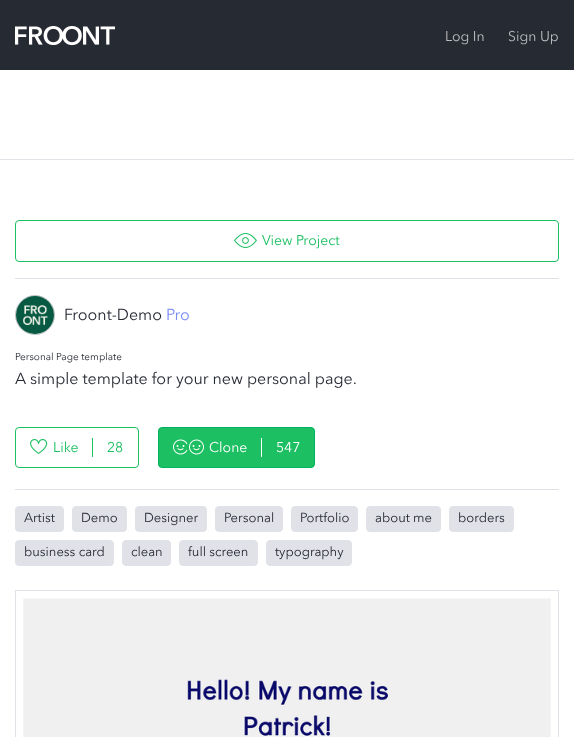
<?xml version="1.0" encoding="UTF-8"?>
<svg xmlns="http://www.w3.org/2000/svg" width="574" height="737">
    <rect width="100%" height="100%" fill="#FFFFFF"/>
    <rect x="0" y="0" width="574" height="70" fill="#262A33"/>
    <image x="15" y="26" width="100" height="20" href="img_01.png"/>
    <text x="445" y="41" font-family="Avenir Next" font-size="14" fill="#BCBDC0">Log In</text>
    <text x="508" y="41" font-family="Avenir Next" font-size="14" fill="#BCBDC0">Sign Up</text>
    <rect x="0" y="159" width="574" height="1" fill="#E1E2E8"/>
    <rect x="15" y="278" width="544" height="1" fill="#E1E2E8"/>
    <rect x="15.5" y="220.5" width="543" height="41" rx="3.5" fill="none" stroke="#1CBF61"/>
    <image x="234" y="233" width="23" height="15" href="img_02.png"/>
    <text x="262" y="245" font-family="Avenir Next" font-size="14" fill="#1CBF61">View Project</text>
    <circle cx="35" cy="315" r="19.5" fill="none" stroke="#BCBDC0"/>
    <image x="16" y="296" width="38" height="38" href="img_03.png"/>
    <text x="64" y="320" font-family="Avenir Next" font-size="16" fill="#262A33">Froont-Demo</text>
    <text x="166" y="320" font-family="Avenir Next" font-size="16" fill="#7B8CF6">Pro</text>
    <text x="15" y="360" font-family="Avenir Next" font-size="10" fill="#262A33">Personal Page template</text>
    <text x="15" y="384" font-family="Avenir Next" font-size="16" fill="#262A33">A simple template for your new personal page.</text>
    <rect x="15.5" y="427.5" width="123" height="40" rx="3.5" fill="none" stroke="#1CBF61"/>
    <image x="30" y="439" width="18" height="15" href="img_04.png"/>
    <text x="53" y="452" font-family="Avenir Next" font-size="14" fill="#1CBF61">Like</text>
    <rect x="92" y="438" width="1" height="19" fill="#1CBF61"/>
    <text x="107" y="452" font-family="Avenir Next" font-size="14" fill="#1CBF61">28</text>
    <rect x="158.5" y="427.5" width="156" height="40" rx="3.5" fill="#1CBF61" stroke="#00B360"/>
    <image x="173" y="439" width="31" height="16" href="img_05.png"/>
    <text x="209" y="452" font-family="Avenir Next" font-size="14" fill="#FFFFFF">Clone</text>
    <rect x="261" y="438" width="1" height="19" fill="#FFFFFF"/>
    <text x="276" y="452" font-family="Avenir Next" font-size="14" fill="#FFFFFF">547</text>
    <rect x="15" y="489" width="544" height="1" fill="#E1E2E8"/>
    <rect x="15.5" y="506.5" width="48" height="25" rx="3.5" fill="#E1E2E8" stroke="#E1E2E8"/>
    <text x="24" y="522" font-family="Avenir Next" font-size="13" fill="#262A33">Artist</text>
    <rect x="72.5" y="506.5" width="54" height="25" rx="3.5" fill="#E1E2E8" stroke="#E1E2E8"/>
    <text x="81" y="522" font-family="Avenir Next" font-size="13" fill="#262A33">Demo</text>
    <rect x="135.5" y="506.5" width="71" height="25" rx="3.5" fill="#E1E2E8" stroke="#E1E2E8"/>
    <text x="144" y="522" font-family="Avenir Next" font-size="13" fill="#262A33">Designer</text>
    <rect x="215.5" y="506.5" width="67" height="25" rx="3.5" fill="#E1E2E8" stroke="#E1E2E8"/>
    <text x="224" y="522" font-family="Avenir Next" font-size="13" fill="#262A33">Personal</text>
    <rect x="291.5" y="506.5" width="66" height="25" rx="3.5" fill="#E1E2E8" stroke="#E1E2E8"/>
    <text x="300" y="522" font-family="Avenir Next" font-size="13" fill="#262A33">Portfolio</text>
    <rect x="366.5" y="506.5" width="74" height="25" rx="3.5" fill="#E1E2E8" stroke="#E1E2E8"/>
    <text x="375" y="522" font-family="Avenir Next" font-size="13" fill="#262A33">about me</text>
    <rect x="449.5" y="506.5" width="64" height="25" rx="3.5" fill="#E1E2E8" stroke="#E1E2E8"/>
    <text x="458" y="522" font-family="Avenir Next" font-size="13" fill="#262A33">borders</text>
    <rect x="15.5" y="540.5" width="98" height="25" rx="3.5" fill="#E1E2E8" stroke="#E1E2E8"/>
    <text x="24" y="556" font-family="Avenir Next" font-size="13" fill="#262A33">business card</text>
    <rect x="122.5" y="540.5" width="48" height="25" rx="3.5" fill="#E1E2E8" stroke="#E1E2E8"/>
    <text x="131" y="556" font-family="Avenir Next" font-size="13" fill="#262A33">clean</text>
    <rect x="179.5" y="540.5" width="78" height="25" rx="3.5" fill="#E1E2E8" stroke="#E1E2E8"/>
    <text x="188" y="556" font-family="Avenir Next" font-size="13" fill="#262A33">full screen</text>
    <rect x="266.5" y="540.5" width="85" height="25" rx="3.5" fill="#E1E2E8" stroke="#E1E2E8"/>
    <text x="275" y="556" font-family="Avenir Next" font-size="13" fill="#262A33">typography</text>
    <rect x="15.5" y="590.5" width="543" height="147" fill="none" stroke="#E1E2E8"/>
    <image x="23" y="598" width="528" height="139" href="img_06.png"/>
</svg>
